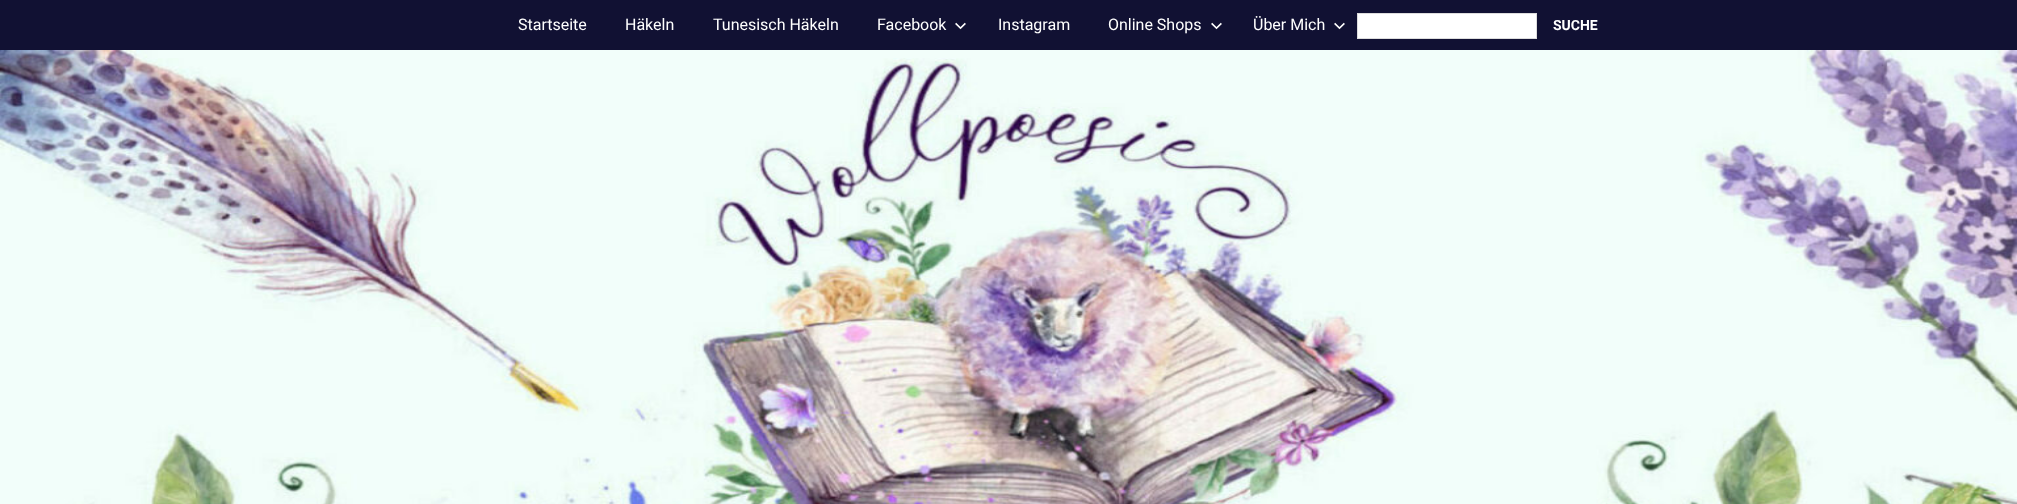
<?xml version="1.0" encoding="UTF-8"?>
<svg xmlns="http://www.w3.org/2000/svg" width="2017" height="504">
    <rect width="100%" height="100%" fill="#111133"/>
    <text x="518" y="30" font-family="Roboto" font-size="16" fill="#FFFFFF">Startseite</text>
    <text x="625" y="30" font-family="Roboto" font-size="16" fill="#FFFFFF">Häkeln</text>
    <text x="713" y="30" font-family="Roboto" font-size="16" fill="#FFFFFF">Tunesisch Häkeln</text>
    <text x="877" y="30" font-family="Roboto" font-size="16" fill="#FFFFFF">Facebook</text>
    <image x="955" y="22" width="11" height="8" href="img_01.png"/>
    <text x="998" y="30" font-family="Roboto" font-size="16" fill="#FFFFFF">Instagram</text>
    <text x="1108" y="30" font-family="Roboto" font-size="16" fill="#FFFFFF">Online Shops</text>
    <image x="1211" y="22" width="11" height="8" href="img_01.png"/>
    <text x="1253" y="30" font-family="Roboto" font-size="16" fill="#FFFFFF">Über Mich</text>
    <image x="1334" y="22" width="11" height="8" href="img_01.png"/>
    <rect x="1357.5" y="13.5" width="179" height="25" fill="#FFFFFF" stroke="#DDDDDD"/>
    <text x="1553" y="30" font-family="Roboto" font-size="14" font-weight="700" fill="#FFFFFF">SUCHE</text>
    <image x="0" y="50" width="2017" height="454" href="img_02.png"/>
</svg>
